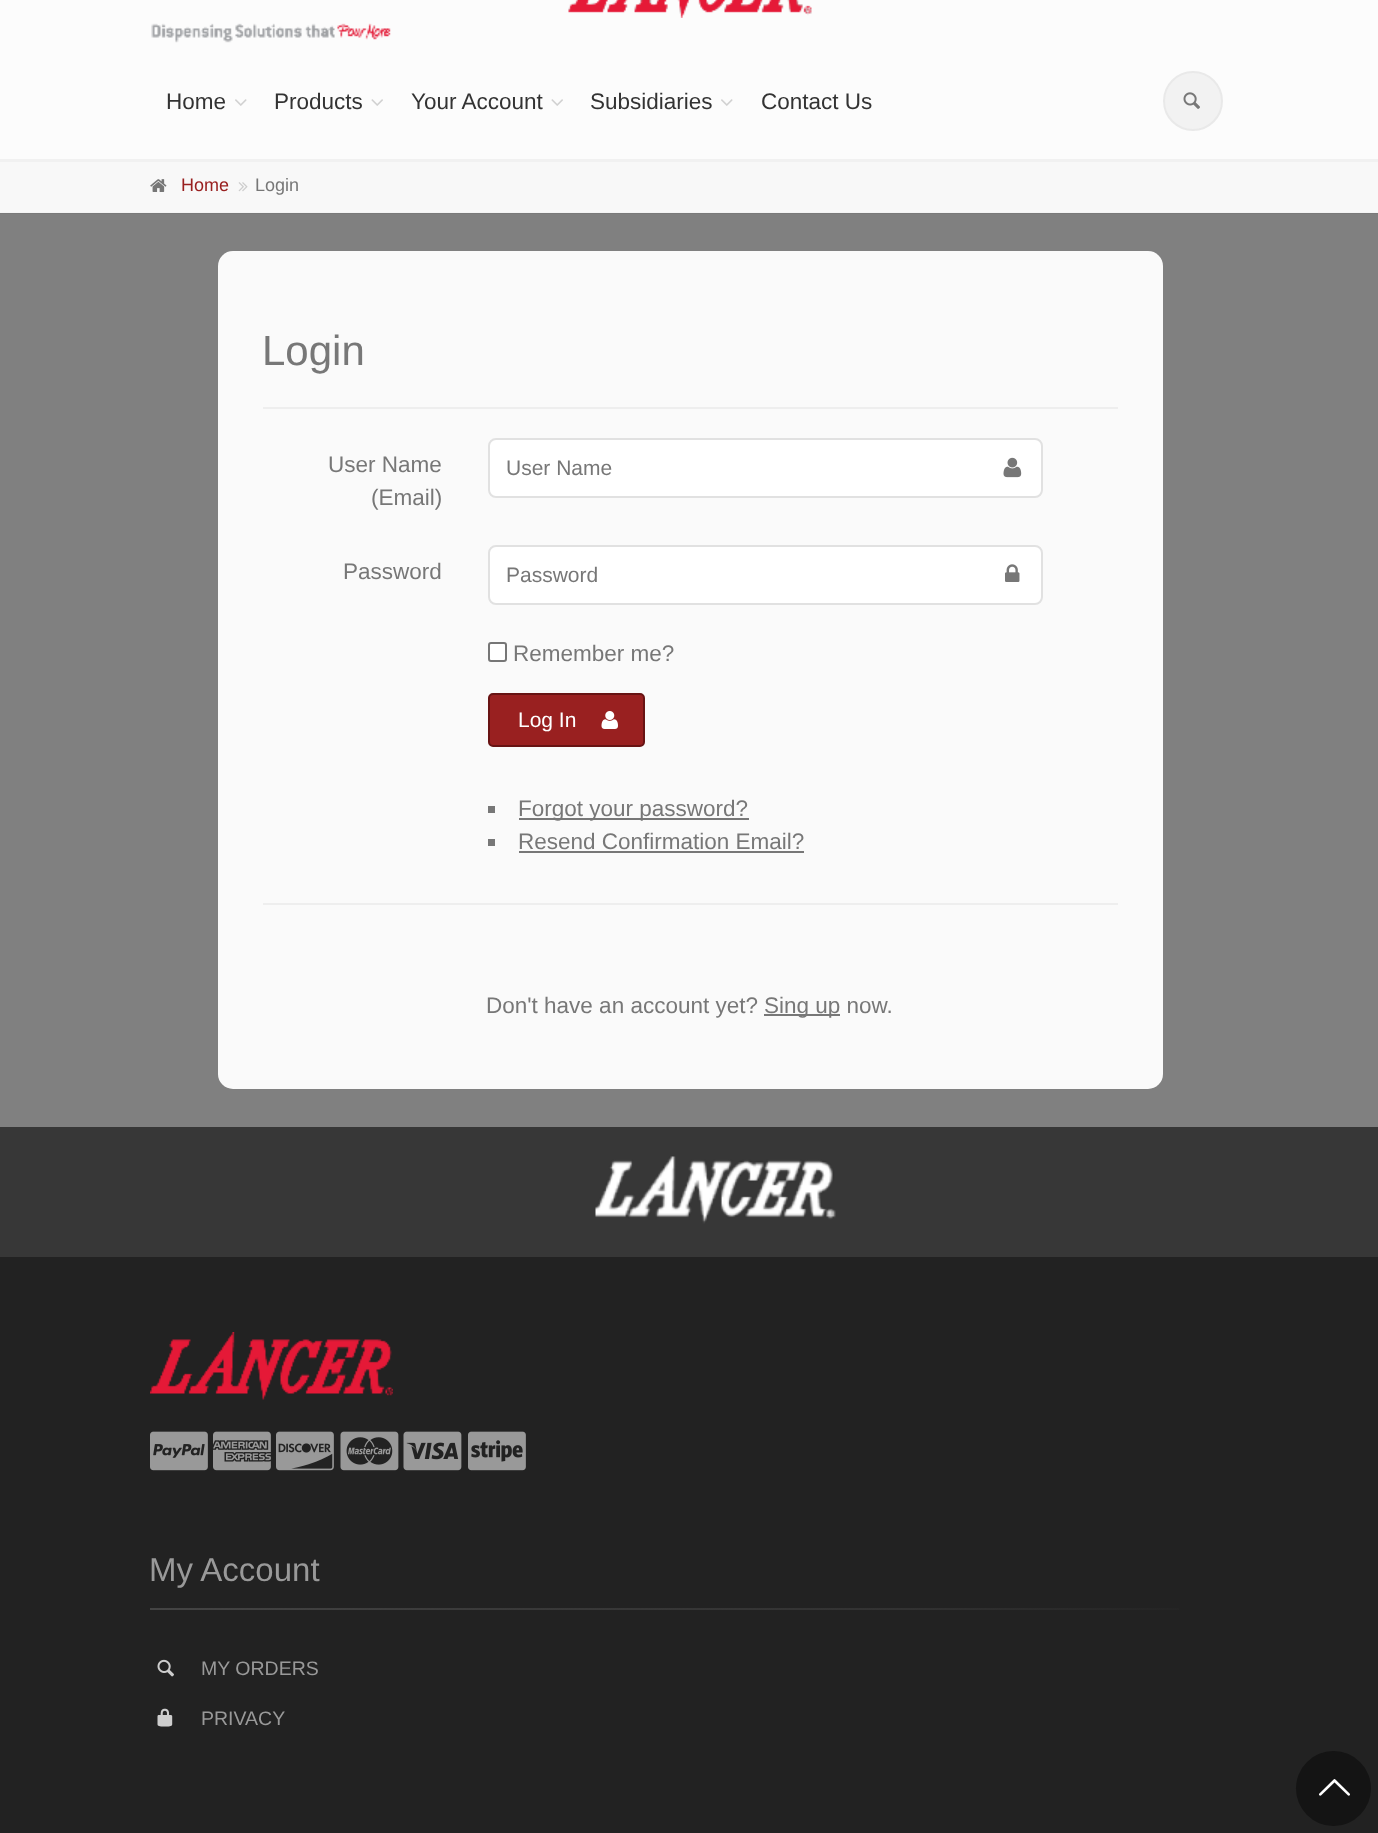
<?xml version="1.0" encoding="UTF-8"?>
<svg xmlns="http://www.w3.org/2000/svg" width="1378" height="1833">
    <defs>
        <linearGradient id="g1" gradientUnits="userSpaceOnUse" x1="150" y1="1609" x2="1230" y2="1609"><stop offset="0" stop-color="#444444"/><stop offset="0.35" stop-color="#393939"/><stop offset="0.7" stop-color="#323232"/><stop offset="1" stop-color="#222222"/></linearGradient>
    </defs>
    <rect width="100%" height="100%" fill="#808080"/>
    <rect x="0" y="0" width="1378" height="159" fill="#FCFCFC"/>
    <rect x="0" y="159" width="1378" height="3" fill="#F1F1F1"/>
    <image x="568" y="0" width="244" height="18" href="img_01.png"/>
    <image x="151" y="23" width="240" height="20" href="img_02.png"/>
    <text x="166" y="109" font-family="Liberation Sans" font-size="22.5" fill="#333333">Home</text>
    <image x="235" y="99" width="12" height="7" href="img_03.png"/>
    <text x="274" y="109" font-family="Liberation Sans" font-size="22.5" fill="#333333">Products</text>
    <image x="371" y="99" width="12" height="7" href="img_04.png"/>
    <text x="411" y="109" font-family="Liberation Sans" font-size="22.5" fill="#333333">Your Account</text>
    <image x="551" y="99" width="12" height="7" href="img_04.png"/>
    <text x="590" y="109" font-family="Liberation Sans" font-size="22.5" fill="#333333">Subsidiaries</text>
    <image x="721" y="99" width="12" height="7" href="img_03.png"/>
    <text x="761" y="109" font-family="Liberation Sans" font-size="22.5" fill="#333333">Contact Us</text>
    <circle cx="1193" cy="101" r="29" fill="#F2F2F2" stroke="#E9E9E9" stroke-width="2"/>
    <image x="1183" y="92" width="17" height="17" href="img_05.png"/>
    <rect x="0" y="162" width="1378" height="50" fill="#F8F8F8"/>
    <rect x="0" y="212" width="1378" height="1" fill="#F4F4F4"/>
    <rect x="0" y="213" width="1378" height="1" fill="#7A7A7A"/>
    <image x="150" y="179" width="17" height="13" href="img_06.png"/>
    <text x="181" y="191" font-family="Liberation Sans" font-size="18" fill="#992020">Home</text>
    <image x="238" y="182" width="10" height="10" href="img_07.png"/>
    <text x="255" y="191" font-family="Liberation Sans" font-size="18" fill="#777777">Login</text>
    <rect x="218" y="251" width="945" height="838" rx="15" fill="#FAFAFA"/>
    <text x="262" y="365" font-family="Liberation Sans" font-size="42" fill="#777777">Login</text>
    <rect x="263" y="407" width="855" height="2" fill="#EEEEEE"/>
    <text x="328" y="472" font-family="Liberation Sans" font-size="22.5" fill="#777777">User Name</text>
    <text x="371" y="505" font-family="Liberation Sans" font-size="22.5" fill="#777777">(Email)</text>
    <rect x="489" y="439" width="553" height="58" rx="7" fill="#FFFFFF" stroke="#E1E1E1" stroke-width="2"/>
    <text x="506" y="475" font-family="Liberation Sans" font-size="21" fill="#777777">User Name</text>
    <image x="1003" y="457" width="19" height="21" href="img_08.png"/>
    <text x="343" y="579" font-family="Liberation Sans" font-size="22.5" fill="#777777">Password</text>
    <rect x="489" y="546" width="553" height="58" rx="7" fill="#FFFFFF" stroke="#E1E1E1" stroke-width="2"/>
    <text x="506" y="582" font-family="Liberation Sans" font-size="21" fill="#777777">Password</text>
    <image x="1005" y="564" width="15" height="18" href="img_09.png"/>
    <rect x="489" y="643" width="17" height="18" rx="2" fill="#FFFFFF" stroke="#767676" stroke-width="2"/>
    <text x="513" y="661" font-family="Liberation Sans" font-size="22.5" fill="#777777">Remember me?</text>
    <rect x="489" y="694" width="155" height="52" rx="4" fill="#992020" stroke="#681313" stroke-width="2"/>
    <text x="518" y="727" font-family="Liberation Sans" font-size="21" fill="#FFFFFF">Log In</text>
    <image x="601" y="711" width="17" height="18" href="img_10.png"/>
    <rect x="488" y="806" width="7" height="7" fill="#777777"/>
    <rect x="519" y="818" width="230" height="2" fill="#777777"/>
    <text x="518" y="816" font-family="Liberation Sans" font-size="22.5" fill="#777777">Forgot your password?</text>
    <rect x="488" y="839" width="7" height="7" fill="#777777"/>
    <text x="518" y="849" font-family="Liberation Sans" font-size="22.5" fill="#777777">Resend Confirmation Email?</text>
    <rect x="519" y="851" width="285" height="2" fill="#777777"/>
    <rect x="263" y="903" width="855" height="2" fill="#EEEEEE"/>
    <text x="486" y="1013" font-family="Liberation Sans" font-size="22.5" fill="#777777">Don't have an account yet?</text>
    <rect x="764" y="1014" width="76" height="2" fill="#777777"/>
    <text x="764" y="1013" font-family="Liberation Sans" font-size="22.5" fill="#777777">Sing up now.</text>
    <rect x="0" y="1127" width="1378" height="130" fill="#373737"/>
    <image x="595" y="1156" width="241" height="68" href="img_11.png"/>
    <rect x="0" y="1257" width="1378" height="576" fill="#222222"/>
    <image x="150" y="1332" width="243" height="68" href="img_12.png"/>
    <image x="150" y="1431" width="58" height="40" href="img_13.png"/>
    <image x="213" y="1431" width="58" height="40" href="img_14.png"/>
    <image x="276" y="1431" width="58" height="40" href="img_15.png"/>
    <image x="340" y="1431" width="59" height="40" href="img_16.png"/>
    <image x="403" y="1431" width="59" height="40" href="img_17.png"/>
    <image x="468" y="1431" width="58" height="40" href="img_18.png"/>
    <text x="149" y="1581" font-family="Liberation Sans" font-size="33" fill="#999999">My Account</text>
    <rect x="150" y="1608" width="1029" height="2" fill="url(#g1)"/>
    <image x="157" y="1659" width="17" height="18" href="img_19.png"/>
    <text x="201" y="1675" font-family="Liberation Sans" font-size="19.5" fill="#999999">MY ORDERS</text>
    <image x="157" y="1708" width="16" height="19" href="img_20.png"/>
    <text x="201" y="1725" font-family="Liberation Sans" font-size="19.5" fill="#999999">PRIVACY</text>
    <circle cx="1333.5" cy="1788.5" r="37.5" fill="#141414"/>
    <image x="1319" y="1779" width="31" height="17" href="img_21.png"/>
</svg>
